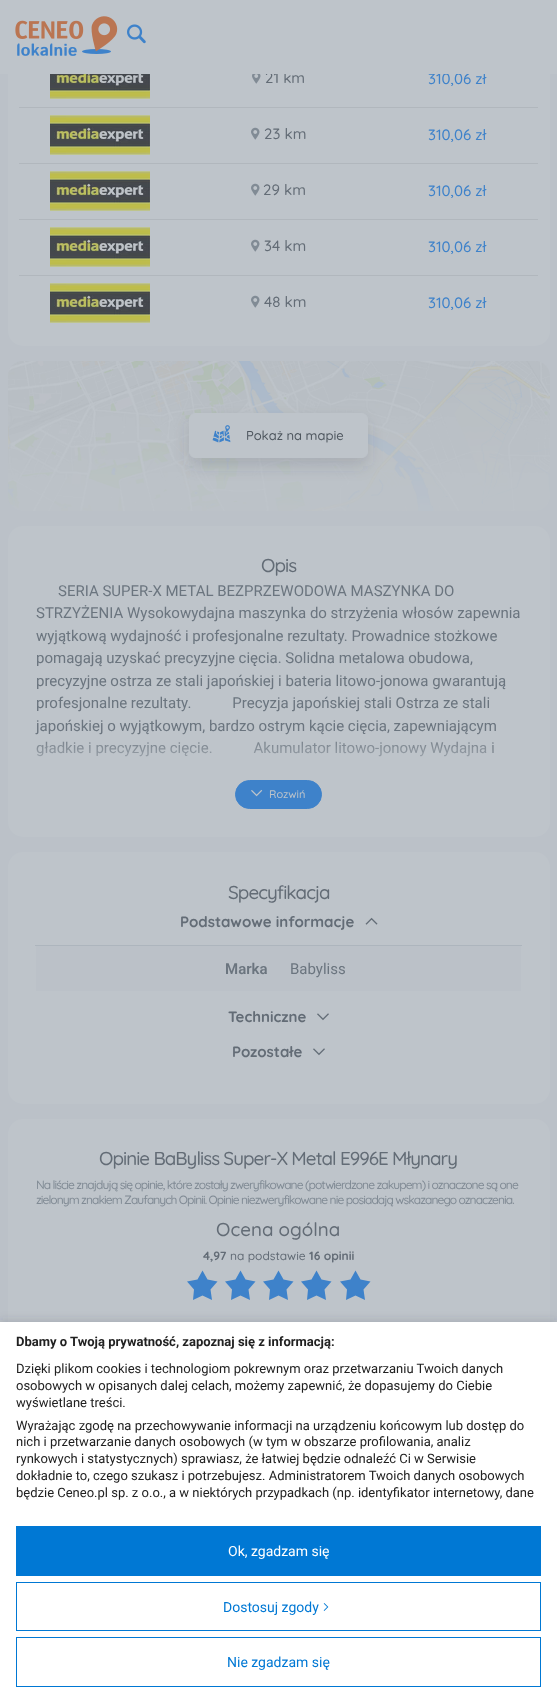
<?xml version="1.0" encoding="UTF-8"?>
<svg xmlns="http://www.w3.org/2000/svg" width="557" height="1699">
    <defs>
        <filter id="blur1" x="-50%" y="-200%" width="200%" height="500%"><feGaussianBlur stdDeviation="7.5"/></filter>
        <linearGradient id="g1" gradientUnits="userSpaceOnUse" x1="279" y1="732" x2="279" y2="780"><stop offset="0" stop-color="#BEC4CA" stop-opacity="0"/><stop offset="1" stop-color="#BEC4CA"/></linearGradient>
        <filter id="blur2" x="-50%" y="-200%" width="200%" height="500%"><feGaussianBlur stdDeviation="4"/></filter>
    </defs>
    <rect width="100%" height="100%" fill="#BBC1C8"/>
    <rect x="8" y="-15" width="542" height="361" rx="15" fill="#BEC4CA"/>
    <text x="265" y="83" font-family="Quicksand" font-size="15" font-weight="500" fill="#636C76">21 km</text>
    <text x="428" y="84" font-family="Quicksand" font-size="15" font-weight="500" fill="#3E82CA">310,06 zł</text>
    <rect x="0" y="0" width="557" height="74" fill="#BEC4CA"/>
    <image x="15" y="16" width="103" height="40" href="img_01.png"/>
    <image x="127" y="24" width="19" height="20" href="img_02.png"/>
    <image x="50" y="74" width="100" height="25" href="img_03.png"/>
    <image x="252" y="74" width="9" height="10" href="img_04.png"/>
    <rect x="19" y="107" width="519" height="1" fill="#B1B7BD"/>
    <image x="50" y="115" width="100" height="40" href="img_05.png"/>
    <image x="251" y="127" width="9" height="13" href="img_06.png"/>
    <text x="264" y="139" font-family="Quicksand" font-size="15" font-weight="500" fill="#636C76">23 km</text>
    <text x="428" y="140" font-family="Quicksand" font-size="15" font-weight="500" fill="#3E82CA">310,06 zł</text>
    <rect x="19" y="163" width="519" height="1" fill="#B1B7BD"/>
    <image x="50" y="171" width="100" height="40" href="img_05.png"/>
    <image x="251" y="183" width="9" height="13" href="img_06.png"/>
    <text x="263" y="195" font-family="Quicksand" font-size="15" font-weight="500" fill="#636C76">29 km</text>
    <text x="428" y="196" font-family="Quicksand" font-size="15" font-weight="500" fill="#3E82CA">310,06 zł</text>
    <rect x="19" y="219" width="519" height="1" fill="#B1B7BD"/>
    <image x="50" y="227" width="100" height="40" href="img_05.png"/>
    <image x="251" y="239" width="9" height="13" href="img_06.png"/>
    <text x="264" y="251" font-family="Quicksand" font-size="15" font-weight="500" fill="#636C76">34 km</text>
    <text x="428" y="252" font-family="Quicksand" font-size="15" font-weight="500" fill="#3E82CA">310,06 zł</text>
    <rect x="19" y="275" width="519" height="1" fill="#B1B7BD"/>
    <image x="50" y="283" width="100" height="40" href="img_05.png"/>
    <image x="251" y="295" width="9" height="13" href="img_06.png"/>
    <text x="264" y="307" font-family="Quicksand" font-size="15" font-weight="500" fill="#636C76">48 km</text>
    <text x="428" y="308" font-family="Quicksand" font-size="15" font-weight="500" fill="#3E82CA">310,06 zł</text>
    <image x="8" y="361" width="542" height="150" href="img_07.png"/>
    <rect x="189" y="421" width="179" height="45" rx="6" fill="#3E444A" fill-opacity="0.15" filter="url(#blur1)"/>
    <rect x="189.5" y="413.5" width="178" height="44" rx="5.5" fill="#BEC4CA" stroke="#BEC4CA"/>
    <image x="212" y="425" width="19" height="18" href="img_08.png"/>
    <text x="246" y="440" font-family="Quicksand" font-size="13" font-weight="500" fill="#4F575F">Pokaż na mapie</text>
    <rect x="8" y="526" width="542" height="311" rx="15" fill="#BEC4CA"/>
    <text x="261" y="572" font-family="Quicksand" font-size="18.75" font-weight="500" letter-spacing="-0.94" fill="#636C76">Opis</text>
    <text x="58" y="596" font-family="Roboto" font-size="15" fill="#6B757F">SERIA SUPER-X METAL BEZPRZEWODOWA MASZYNKA DO</text>
    <text font-family="Roboto" font-size="15" fill="#6B757F" xml:space="preserve"><tspan x="36" y="618">STRZYŻENIA Wysokowydajna maszynka do strzyżenia włosów zapewnia</tspan><tspan x="36" y="641">wyjątkową wydajność i profesjonalne rezultaty. Prowadnice stożkowe</tspan><tspan x="36" y="663">pomagają uzyskać precyzyjne cięcia. Solidna metalowa obudowa,</tspan><tspan x="36" y="686">precyzyjne ostrza ze stali japońskiej i bateria litowo-jonowa gwarantują</tspan><tspan x="36" y="708">profesjonalne rezultaty.           Precyzja japońskiej stali Ostrza ze stali</tspan><tspan x="36" y="731">japońskiej o wyjątkowym, bardzo ostrym kącie cięcia, zapewniającym</tspan><tspan x="36" y="753">gładkie i precyzyjne cięcie.           Akumulator litowo-jonowy Wydajna i</tspan></text>
    <rect x="36" y="733" width="457" height="24" fill="url(#g1)"/>
    <rect x="235.5" y="780.5" width="86" height="28" rx="14" fill="#3E82CA" stroke="#3E82CA"/>
    <image x="251" y="789" width="12" height="8" href="img_09.png"/>
    <text x="269" y="798" font-family="Quicksand" font-size="11" font-weight="500" fill="#BEC4CA">Rozwiń</text>
    <rect x="8" y="852" width="542" height="252" rx="15" fill="#BEC4CA"/>
    <text x="228" y="899" font-family="Quicksand" font-size="18.75" font-weight="500" letter-spacing="-0.94" fill="#636C76">Specyfikacja</text>
    <text x="180" y="927" font-family="Quicksand" font-size="15" font-weight="700" fill="#636C76">Podstawowe informacje</text>
    <image x="365" y="917" width="13" height="8" href="img_10.png"/>
    <rect x="36" y="946" width="485" height="45" fill="#BBC1C8"/>
    <text x="225" y="974" font-family="Roboto" font-size="15" font-weight="600" fill="#6B757F">Marka</text>
    <rect x="35" y="945" width="487" height="1" fill="#ADB5BD"/>
    <text x="290" y="974" font-family="Roboto" font-size="15" fill="#6B757F">Babyliss</text>
    <text x="228" y="1022" font-family="Quicksand" font-size="15" font-weight="700" fill="#636C76">Techniczne</text>
    <image x="317" y="1013" width="12" height="8" href="img_11.png"/>
    <text x="232" y="1057" font-family="Quicksand" font-size="15" font-weight="700" fill="#636C76">Pozostałe</text>
    <image x="313" y="1048" width="12" height="8" href="img_11.png"/>
    <rect x="8" y="1119" width="542" height="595" rx="15" fill="#BEC4CA"/>
    <text x="99" y="1165" font-family="Quicksand" font-size="18.75" font-weight="500" letter-spacing="-0.94" fill="#636C76">Opinie BaByliss Super-X Metal E996E Młynary</text>
    <text font-family="Quicksand" font-size="12" font-weight="500" letter-spacing="-0.94" fill="#818B95">
        <tspan x="36" y="1189">Na liście znajdują się opinie, które zostały zweryfikowane (potwierdzone zakupem) i oznaczone są one</tspan>
        <tspan x="36" y="1204">zielonym znakiem Zaufanych Opinii. Opinie niezweryfikowane nie posiadają wskazanego oznaczenia.</tspan>
    </text>
    <text x="216" y="1236" font-family="Quicksand" font-size="18.75" font-weight="500" fill="#636C76">Ocena ogólna</text>
    <text x="203" y="1260" font-family="Quicksand" font-size="12" font-weight="700" fill="#636C76">4,97</text>
    <text x="230" y="1260" font-family="Quicksand" font-size="12" font-weight="500" fill="#636C76">na podstawie</text>
    <text x="309" y="1260" font-family="Quicksand" font-size="12" font-weight="700" fill="#636C76">16 opinii</text>
    <path d="M 202.5 1270.5 L 207.5 1279.5 L 217.5 1281.5 L 210.5 1289.5 L 212 1300 L 202.5 1295.5 L 193 1300 L 194 1289.5 L 187 1281.5 L 197.5 1279.5 Z" fill="#3E82CA"/>
    <path d="M 240.5 1270.5 L 245.5 1279.5 L 255.5 1281.5 L 248.5 1289.5 L 250 1300 L 240.5 1295.5 L 231 1300 L 232 1289.5 L 225 1281.5 L 235.5 1279.5 Z" fill="#3E82CA"/>
    <path d="M 278.5 1270.5 L 283.5 1279.5 L 293.5 1281.5 L 286.5 1289.5 L 288 1300 L 278.5 1295.5 L 269 1300 L 270 1289.5 L 263 1281.5 L 273.5 1279.5 Z" fill="#3E82CA"/>
    <path d="M 316.5 1270.5 L 321.5 1279.5 L 331.5 1281.5 L 324.5 1289.5 L 326 1300 L 316.5 1295.5 L 307 1300 L 308 1289.5 L 301 1281.5 L 311.5 1279.5 Z" fill="#3E82CA"/>
    <path d="M 355.5 1270.5 L 360.5 1279.5 L 370.5 1281.5 L 363.5 1289.5 L 365 1300 L 355.5 1295.5 L 346 1300 L 347 1289.5 L 340 1281.5 L 350.5 1279.5 Z" fill="#3E82CA"/>
    <rect x="0" y="1320" width="557" height="377" fill="#3E444A" fill-opacity="0.16" filter="url(#blur2)"/>
    <rect x="0" y="1322" width="557" height="377" fill="#FFFFFF"/>
    <text x="16" y="1346" font-family="Roboto" font-size="13" font-weight="700" fill="#212121">Dbamy o Twoją prywatność, zapoznaj się z informacją:</text>
    <text font-family="Roboto" font-size="13" fill="#212121">
        <tspan x="16" y="1373">Dzięki plikom cookies i technologiom pokrewnym oraz przetwarzaniu Twoich danych</tspan>
        <tspan x="16" y="1390">osobowych w opisanych dalej celach, możemy zapewnić, że dopasujemy do Ciebie</tspan>
        <tspan x="16" y="1407">wyświetlane treści.</tspan>
        <tspan x="16" y="1430">Wyrażając zgodę na przechowywanie informacji na urządzeniu końcowym lub dostęp do</tspan>
        <tspan x="16" y="1446">nich i przetwarzanie danych osobowych (w tym w obszarze profilowania, analiz</tspan>
        <tspan x="16" y="1463">rynkowych i statystycznych) sprawiasz, że łatwiej będzie odnaleźć Ci w Serwisie</tspan>
        <tspan x="16" y="1480">dokładnie to, czego szukasz i potrzebujesz. Administratorem Twoich danych osobowych</tspan>
        <tspan x="16" y="1497">będzie Ceneo.pl sp. z o.o., a w niektórych przypadkach (np. identyfikator internetowy, dane</tspan>
    </text>
    <rect x="16" y="1526" width="525" height="50" fill="#0078D4"/>
    <text x="228" y="1556" font-family="Roboto" font-size="14" fill="#FFFFFF">Ok, zgadzam się</text>
    <rect x="16.5" y="1582.5" width="524" height="48" fill="none" stroke="#0078D4"/>
    <text x="223" y="1612" font-family="Roboto" font-size="14" fill="#0078D4">Dostosuj zgody</text>
    <image x="323" y="1603" width="6" height="8" href="img_12.png"/>
    <rect x="16.5" y="1637.5" width="524" height="49" fill="none" stroke="#0078D4"/>
    <text x="227" y="1667" font-family="Roboto" font-size="14" fill="#0078D4">Nie zgadzam się</text>
</svg>
